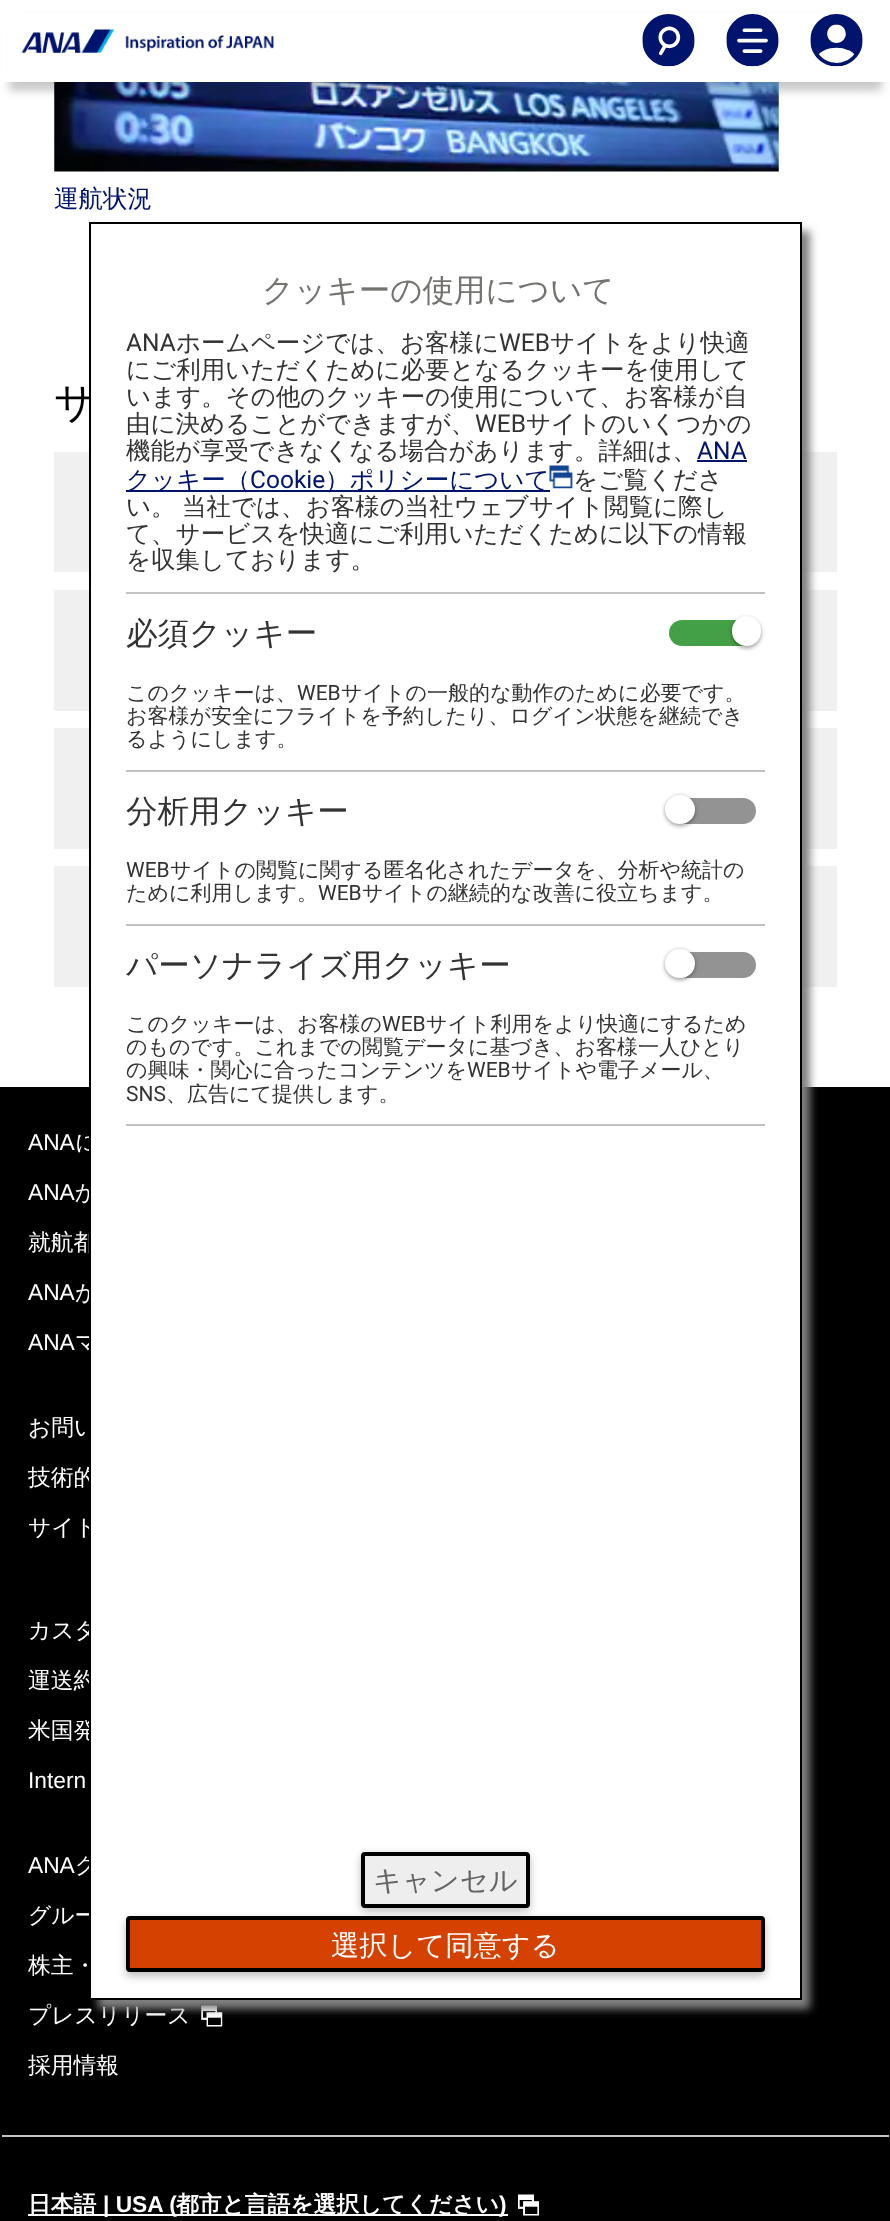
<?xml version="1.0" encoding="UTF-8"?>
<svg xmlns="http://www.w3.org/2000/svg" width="890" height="2221">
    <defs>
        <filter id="blur1" x="-50%" y="-200%" width="200%" height="500%"><feGaussianBlur stdDeviation="9"/></filter>
        <filter id="blur2" x="-50%" y="-200%" width="200%" height="500%"><feGaussianBlur stdDeviation="4.5"/></filter>
        <filter id="blur3" x="-50%" y="-200%" width="200%" height="500%"><feGaussianBlur stdDeviation="2"/></filter>
    </defs>
    <rect width="100%" height="100%" fill="#FFFFFF"/>
    <image x="54" y="82" width="725" height="90" href="img_05.png"/>
    <rect x="18" y="28" width="855" height="47" fill="#000000" fill-opacity="0.14" filter="url(#blur1)"/>
    <rect x="9" y="26" width="873" height="65" fill="#000000" fill-opacity="0.2" filter="url(#blur2)"/>
    <rect x="1" y="14" width="889" height="68" fill="#FFFFFF"/>
    <image x="21" y="29" width="254" height="24" href="img_01.png"/>
    <image x="642" y="14" width="53" height="53" href="img_02.png"/>
    <image x="726" y="14" width="53" height="53" href="img_03.png"/>
    <image x="810" y="14" width="53" height="53" href="img_04.png"/>
    <text x="54" y="207" font-family="WenQuanYi Zen Hei" font-size="24.5" font-weight="500" fill="#00146E">運航状況</text>
    <text x="54" y="417" font-family="WenQuanYi Zen Hei" font-size="42" font-weight="500" fill="#000000">サ</text>
    <rect x="54" y="452" width="783" height="120" fill="#F0F0F0"/>
    <rect x="54" y="590" width="783" height="121" fill="#F0F0F0"/>
    <rect x="54" y="728" width="783" height="121" fill="#F0F0F0"/>
    <rect x="54" y="866" width="783" height="121" fill="#F0F0F0"/>
    <rect x="0" y="1087" width="890" height="1134" fill="#000000"/>
    <rect x="2" y="2135" width="887" height="2" fill="#C2C2C2"/>
    <text x="28" y="1150" font-family="Liberation Sans" font-size="22.75" fill="#FFFFFF">ANA</text>
    <text x="75" y="1150" font-family="WenQuanYi Zen Hei" font-size="22.75" font-weight="500" fill="#FFFFFF">に</text>
    <text x="28" y="1200" font-family="Liberation Sans" font-size="22.75" fill="#FFFFFF">ANA</text>
    <text x="75" y="1200" font-family="WenQuanYi Zen Hei" font-size="22.75" font-weight="500" fill="#FFFFFF">か</text>
    <text x="28" y="1250" font-family="WenQuanYi Zen Hei" font-size="22.75" font-weight="500" fill="#FFFFFF">就航都</text>
    <text x="28" y="1300" font-family="Liberation Sans" font-size="22.75" fill="#FFFFFF">ANA</text>
    <text x="75" y="1300" font-family="WenQuanYi Zen Hei" font-size="22.75" font-weight="500" fill="#FFFFFF">が</text>
    <text x="28" y="1350" font-family="Liberation Sans" font-size="22.75" fill="#FFFFFF">ANA</text>
    <text x="75" y="1350" font-family="WenQuanYi Zen Hei" font-size="22.75" font-weight="500" fill="#FFFFFF">マ</text>
    <text x="28" y="1435" font-family="WenQuanYi Zen Hei" font-size="22.75" font-weight="500" fill="#FFFFFF">お問い</text>
    <text x="28" y="1485" font-family="WenQuanYi Zen Hei" font-size="22.75" font-weight="500" fill="#FFFFFF">技術的</text>
    <text x="28" y="1535" font-family="WenQuanYi Zen Hei" font-size="22.75" font-weight="500" fill="#FFFFFF">サイト</text>
    <text x="28" y="1638" font-family="WenQuanYi Zen Hei" font-size="22.75" font-weight="500" fill="#FFFFFF">カスタ</text>
    <text x="28" y="1688" font-family="WenQuanYi Zen Hei" font-size="22.75" font-weight="500" fill="#FFFFFF">運送約</text>
    <text x="28" y="1738" font-family="WenQuanYi Zen Hei" font-size="22.75" font-weight="500" fill="#FFFFFF">米国発</text>
    <text x="28" y="1788" font-family="Liberation Sans" font-size="22.75" fill="#FFFFFF">Intern</text>
    <text x="28" y="1873" font-family="Liberation Sans" font-size="22.75" fill="#FFFFFF">ANA</text>
    <text x="75" y="1873" font-family="WenQuanYi Zen Hei" font-size="22.75" font-weight="500" fill="#FFFFFF">グ</text>
    <text x="28" y="1923" font-family="WenQuanYi Zen Hei" font-size="22.75" font-weight="500" fill="#FFFFFF">グルー</text>
    <text x="28" y="1973" font-family="WenQuanYi Zen Hei" font-size="22.75" font-weight="500" fill="#FFFFFF">株主・</text>
    <text x="28" y="2023" font-family="WenQuanYi Zen Hei" font-size="22.75" font-weight="500" fill="#FFFFFF">プレスリリース</text>
    <image x="201" y="2005" width="22" height="22" href="img_06.png"/>
    <text x="28" y="2073" font-family="WenQuanYi Zen Hei" font-size="22.75" font-weight="500" fill="#FFFFFF">採用情報</text>
    <rect x="28" y="2214" width="480" height="2" fill="#FFFFFF"/>
    <text x="28" y="2212" font-family="WenQuanYi Zen Hei" font-size="22.75" font-weight="700" fill="#FFFFFF">日本語</text>
    <text x="103" y="2212" font-family="Liberation Sans" font-size="22.75" font-weight="700" fill="#FFFFFF">| USA (</text>
    <text x="176" y="2212" font-family="WenQuanYi Zen Hei" font-size="22.75" font-weight="700" fill="#FFFFFF">都市と言語を選択してください</text>
    <text x="499" y="2212" font-family="Liberation Sans" font-size="22.75" font-weight="700" fill="#FFFFFF">)</text>
    <image x="518" y="2194" width="21" height="22" href="img_07.png"/>
    <rect x="98" y="231" width="712" height="1778" fill="#808080" filter="url(#blur2)"/>
    <rect x="90" y="223" width="711" height="1776" fill="#FFFFFF" stroke="#000000" stroke-width="2"/>
    <text x="262" y="301" font-family="WenQuanYi Zen Hei" font-size="31.5" font-weight="500" fill="#74736F">クッキーの使用について</text>
    <text x="126" y="351" font-family="Roboto" font-size="24.5" fill="#333333">ANA</text>
    <text x="176" y="351" font-family="WenQuanYi Zen Hei" font-size="24.5" font-weight="500" fill="#333333">ホームページでは、お客様に</text>
    <text x="499" y="351" font-family="Roboto" font-size="24.5" fill="#333333">WEB</text>
    <text x="550" y="351" font-family="WenQuanYi Zen Hei" font-size="24.5" font-weight="500" fill="#333333">サイトをより快適</text>
    <text font-family="WenQuanYi Zen Hei" font-size="24.5" font-weight="500" fill="#333333">
        <tspan x="126" y="378">にご利用いただくために必要となるクッキーを使用して</tspan>
        <tspan x="126" y="405">います。その他のクッキーの使用について、お客様が自</tspan>
        <tspan x="126" y="432">由に決めることができますが、</tspan>
    </text>
    <text x="475" y="432" font-family="Roboto" font-size="24.5" fill="#333333">WEB</text>
    <text x="526" y="432" font-family="WenQuanYi Zen Hei" font-size="24.5" font-weight="500" fill="#333333">サイトのいくつかの</text>
    <text x="126" y="459" font-family="WenQuanYi Zen Hei" font-size="24.5" font-weight="500" fill="#333333">機能が享受できなくなる場合があります。詳細は、</text>
    <text x="697" y="459" font-family="Roboto" font-size="24.5" fill="#00146E">ANA</text>
    <rect x="697" y="460" width="50" height="2" fill="#00146E"/>
    <rect x="126" y="490" width="424" height="2" fill="#00146E"/>
    <text x="126" y="488" font-family="WenQuanYi Zen Hei" font-size="24.5" font-weight="500" fill="#00146E">クッキー（</text>
    <text x="250" y="488" font-family="Roboto" font-size="24.5" fill="#00146E">Cookie</text>
    <text x="325" y="488" font-family="WenQuanYi Zen Hei" font-size="24.5" font-weight="500" fill="#00146E">）ポリシーについて</text>
    <image x="549" y="465" width="24" height="24" href="img_08.png"/>
    <text x="573" y="488" font-family="WenQuanYi Zen Hei" font-size="24.5" font-weight="500" fill="#333333">をご覧くださ</text>
    <text font-family="WenQuanYi Zen Hei" font-size="24.5" font-weight="500" fill="#333333">
        <tspan x="126" y="515" word-spacing="-1">い。 当社では、お客様の当社ウェブサイト閲覧に際し</tspan>
        <tspan x="126" y="542">て、サービスを快適にご利用いただくために以下の情報</tspan>
        <tspan x="126" y="568">を収集しております。</tspan>
    </text>
    <rect x="126" y="592" width="639" height="2" fill="#C2C2C2"/>
    <text x="126" y="644" font-family="WenQuanYi Zen Hei" font-size="31.5" font-weight="500" fill="#333333">必須クッキー</text>
    <rect x="669" y="620" width="87" height="26" rx="13" fill="#43A047"/>
    <rect x="732" y="618" width="29" height="30" rx="14.5" fill="#000000" fill-opacity="0.4" filter="url(#blur3)"/>
    <rect x="732" y="616" width="29" height="30" rx="14.5" fill="#FFFFFF"/>
    <text x="126" y="700" font-family="WenQuanYi Zen Hei" font-size="21" font-weight="500" fill="#333333">このクッキーは、</text>
    <text x="297" y="700" font-family="Roboto" font-size="21" fill="#333333">WEB</text>
    <text x="341" y="700" font-family="WenQuanYi Zen Hei" font-size="21" font-weight="500" fill="#333333">サイトの一般的な動作のために必要です。</text>
    <text font-family="WenQuanYi Zen Hei" font-size="21" font-weight="500" fill="#333333">
        <tspan x="126" y="723">お客様が安全にフライトを予約したり、ログイン状態を継続でき</tspan>
        <tspan x="126" y="746">るようにします。</tspan>
    </text>
    <rect x="126" y="770" width="639" height="2" fill="#C2C2C2"/>
    <text x="126" y="822" font-family="WenQuanYi Zen Hei" font-size="31.5" font-weight="500" fill="#333333">分析用クッキー</text>
    <rect x="669" y="798" width="87" height="26" rx="13" fill="#939393"/>
    <rect x="665" y="796" width="30" height="30" rx="15" fill="#000000" fill-opacity="0.4" filter="url(#blur3)"/>
    <rect x="665" y="795" width="30" height="29" rx="14.5" fill="#FFFFFF"/>
    <text x="126" y="877" font-family="Roboto" font-size="21" fill="#333333">WEB</text>
    <text x="170" y="877" font-family="WenQuanYi Zen Hei" font-size="21" font-weight="500" fill="#333333">サイトの閲覧に関する匿名化されたデータを、分析や統計の</text>
    <text x="126" y="900" font-family="WenQuanYi Zen Hei" font-size="21" font-weight="500" fill="#333333">ために利用します。</text>
    <text x="318" y="900" font-family="Roboto" font-size="21" fill="#333333">WEB</text>
    <text x="362" y="900" font-family="WenQuanYi Zen Hei" font-size="21" font-weight="500" fill="#333333">サイトの継続的な改善に役立ちます。</text>
    <rect x="126" y="924" width="639" height="2" fill="#C2C2C2"/>
    <text x="126" y="976" font-family="WenQuanYi Zen Hei" font-size="31.5" font-weight="500" fill="#333333">パーソナライズ用クッキー</text>
    <rect x="669" y="952" width="87" height="26" rx="13" fill="#939393"/>
    <rect x="665" y="950" width="30" height="30" rx="15" fill="#000000" fill-opacity="0.4" filter="url(#blur3)"/>
    <rect x="665" y="949" width="30" height="29" rx="14.5" fill="#FFFFFF"/>
    <text x="126" y="1031" font-family="WenQuanYi Zen Hei" font-size="21" font-weight="500" fill="#333333">このクッキーは、お客様の</text>
    <text x="382" y="1031" font-family="Roboto" font-size="21" fill="#333333">WEB</text>
    <text x="426" y="1031" font-family="WenQuanYi Zen Hei" font-size="21" font-weight="500" fill="#333333">サイト利用をより快適にするため</text>
    <text font-family="WenQuanYi Zen Hei" font-size="21" font-weight="500" fill="#333333">
        <tspan x="126" y="1054">のものです。これまでの閲覧データに基づき、お客様一人ひとり</tspan>
        <tspan x="126" y="1077">の興味・関心に合ったコンテンツを</tspan>
    </text>
    <text x="467" y="1077" font-family="Roboto" font-size="21" fill="#333333">WEB</text>
    <text x="511" y="1077" font-family="WenQuanYi Zen Hei" font-size="21" font-weight="500" fill="#333333">サイトや電子メール、</text>
    <text x="126" y="1101" font-family="Roboto" font-size="21" fill="#333333">SNS</text>
    <text x="166" y="1101" font-family="WenQuanYi Zen Hei" font-size="21" font-weight="500" fill="#333333">、広告にて提供します。</text>
    <rect x="126" y="1124" width="639" height="2" fill="#C2C2C2"/>
    <rect x="361" y="1855" width="169" height="56" rx="4" fill="#000000" fill-opacity="0.26" filter="url(#blur2)"/>
    <rect x="363" y="1854" width="165" height="52" rx="2" fill="#EEEEEE" stroke="#000000" stroke-width="4"/>
    <text x="373" y="1890" font-family="WenQuanYi Zen Hei" font-size="28.25" font-weight="500" fill="#646464">キャンセル</text>
    <rect x="126" y="1920" width="639" height="56" rx="4" fill="#000000" fill-opacity="0.26" filter="url(#blur2)"/>
    <rect x="128" y="1918" width="635" height="52" rx="2" fill="#D54100" stroke="#000000" stroke-width="4"/>
    <text x="331" y="1955" font-family="WenQuanYi Zen Hei" font-size="28.25" font-weight="500" fill="#FFFFFF">選択して同意する</text>
</svg>
